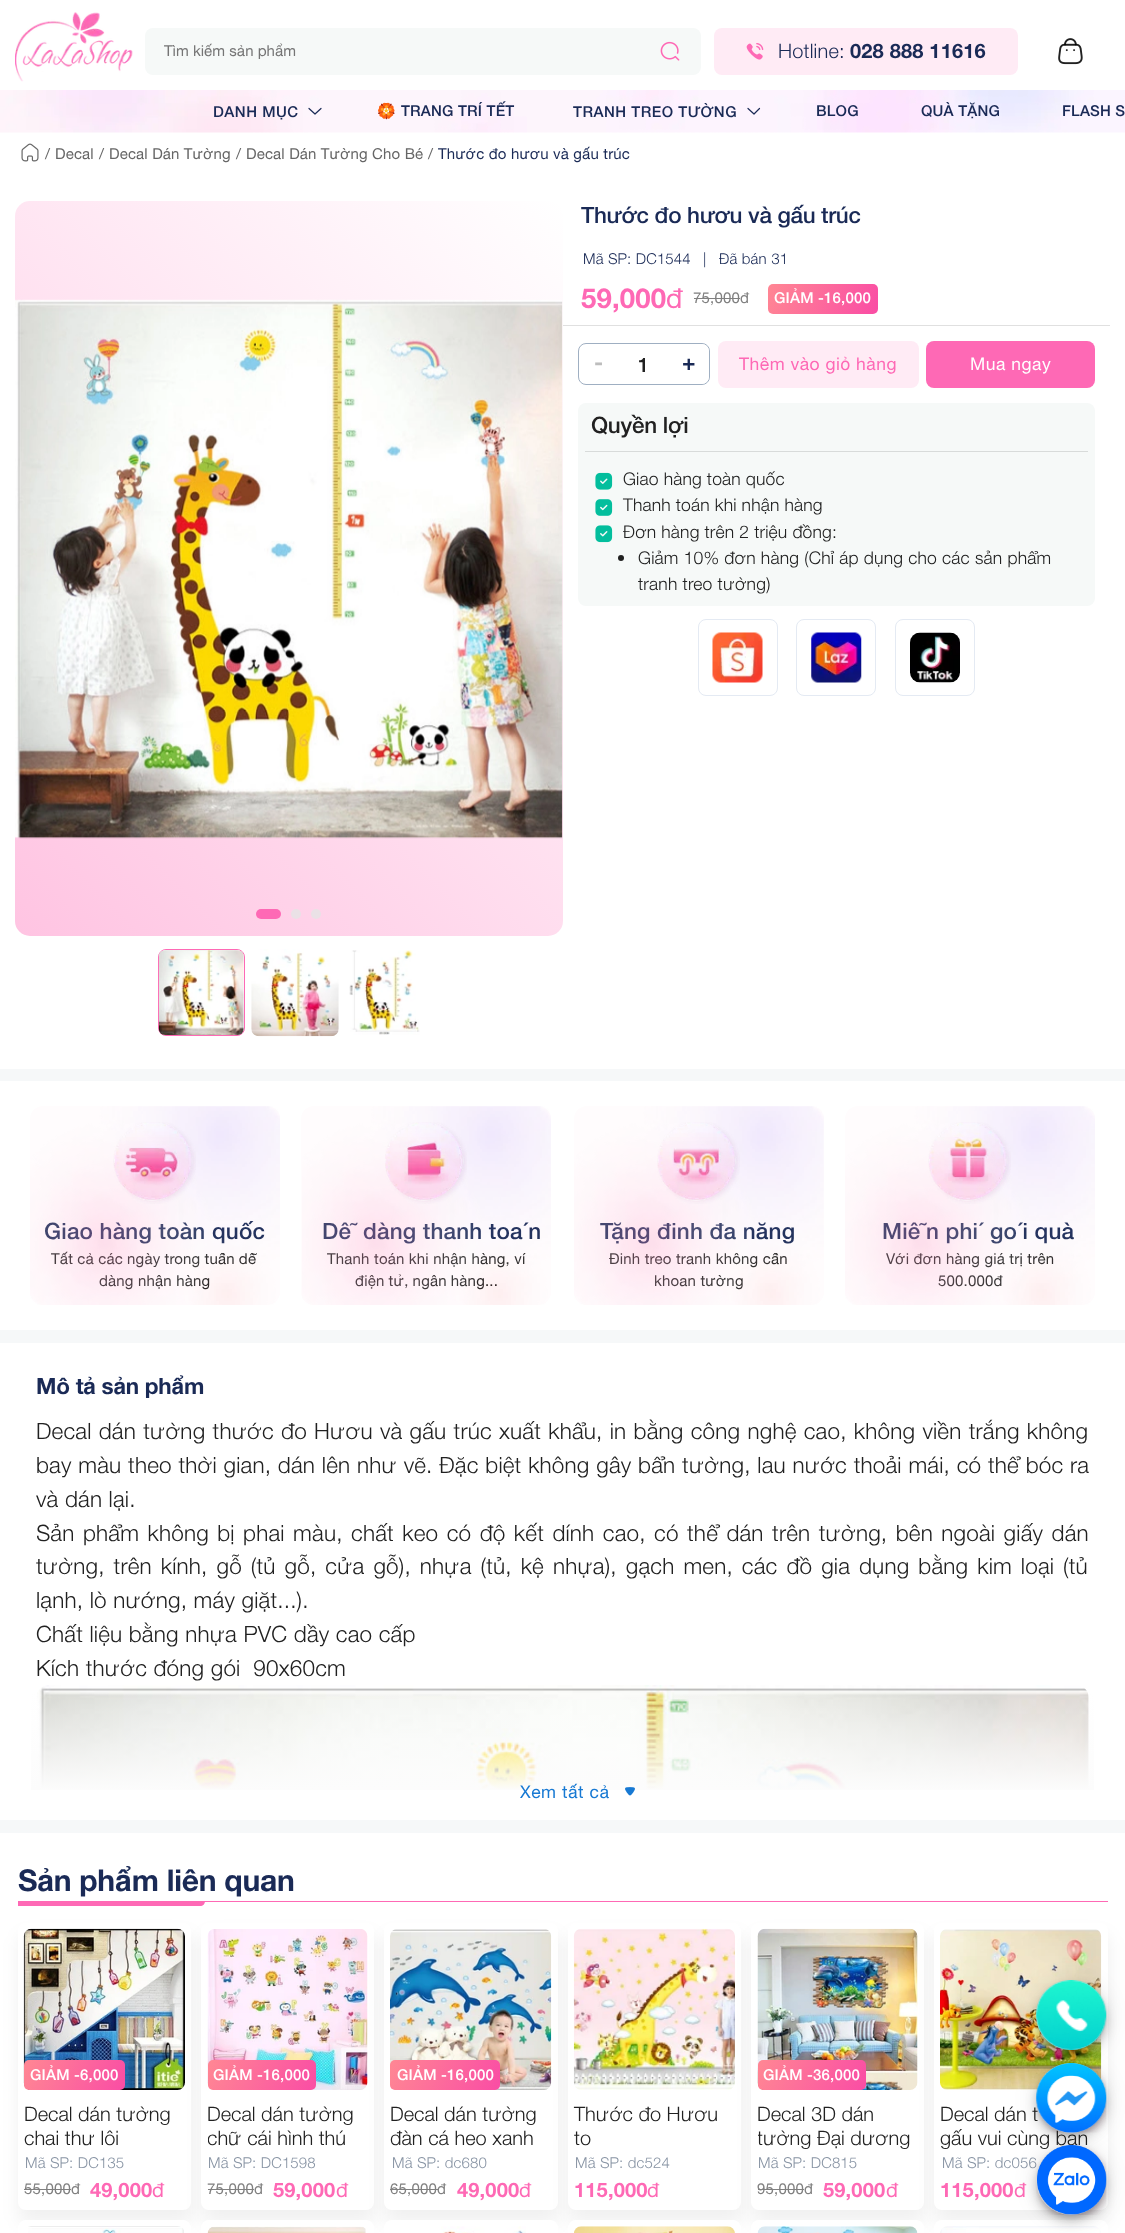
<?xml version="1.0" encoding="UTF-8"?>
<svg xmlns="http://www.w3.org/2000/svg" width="1125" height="2233">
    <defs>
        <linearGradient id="g1" gradientUnits="userSpaceOnUse" x1="-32" y1="889" x2="609" y2="248"><stop offset="0" stop-color="#FFC4E2"/><stop offset="1" stop-color="#FFFFFF"/></linearGradient>
        <linearGradient id="g2" gradientUnits="userSpaceOnUse" x1="770" y1="278" x2="875" y2="320"><stop offset="0.04" stop-color="#FF8594"/><stop offset="0.97" stop-color="#FA4EA4"/></linearGradient>
        <linearGradient id="g3" gradientUnits="userSpaceOnUse" x1="563" y1="1690" x2="563" y2="1790"><stop offset="0" stop-color="#FCFCFC" stop-opacity="0"/><stop offset="1" stop-color="#FCFCFC"/></linearGradient>
        <clipPath id="clip1"><path d="M 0 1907 H 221 V 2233 H 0 Z M 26 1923 H 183 C 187.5 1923 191 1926.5 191 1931 V 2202 C 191 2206.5 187.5 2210 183 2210 H 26 C 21.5 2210 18 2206.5 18 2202 V 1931 C 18 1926.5 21.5 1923 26 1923 Z" clip-rule="evenodd"/></clipPath>
        <filter id="blur1" x="-50%" y="-200%" width="200%" height="500%"><feGaussianBlur stdDeviation="9"/></filter>
        <linearGradient id="g4" gradientUnits="userSpaceOnUse" x1="26" y1="2055" x2="123" y2="2095"><stop offset="0.04" stop-color="#FF8594"/><stop offset="0.97" stop-color="#FA4EA4"/></linearGradient>
        <linearGradient id="g5" gradientUnits="userSpaceOnUse" x1="210" y1="2054" x2="314" y2="2096"><stop offset="0.04" stop-color="#FF8594"/><stop offset="0.97" stop-color="#FA4EA4"/></linearGradient>
        <clipPath id="clip2"><rect x="208" y="2103" width="160" height="46"/></clipPath>
        <linearGradient id="g6" gradientUnits="userSpaceOnUse" x1="392" y1="2054" x2="498" y2="2096"><stop offset="0.04" stop-color="#FF8594"/><stop offset="0.97" stop-color="#FA4EA4"/></linearGradient>
        <linearGradient id="g7" gradientUnits="userSpaceOnUse" x1="760" y1="2054" x2="864" y2="2096"><stop offset="0.04" stop-color="#FF8594"/><stop offset="0.97" stop-color="#FA4EA4"/></linearGradient>
        <clipPath id="clip3"><rect x="758" y="2103" width="160" height="46"/></clipPath>
        <filter id="blur2" x="-50%" y="-200%" width="200%" height="500%"><feGaussianBlur stdDeviation="11"/></filter>
        <filter id="blur3" x="-50%" y="-200%" width="200%" height="500%"><feGaussianBlur stdDeviation="6"/></filter>
        <filter id="blur4" x="-50%" y="-200%" width="200%" height="500%"><feGaussianBlur stdDeviation="3"/></filter>
    </defs>
    <rect width="100%" height="100%" fill="#F6F8F9"/>
    <rect x="0" y="0" width="1125" height="1069" fill="#FFFFFF"/>
    <image x="15" y="12" width="118" height="70" href="img_01.png"/>
    <rect x="145" y="28" width="556" height="47" rx="8" fill="#F6F9F8"/>
    <text x="164" y="56" font-family="Helvetica Neue" font-size="15" fill="#757575">Tìm kiếm sản phẩm</text>
    <image x="660" y="41" width="20" height="20" href="img_02.png"/>
    <rect x="714" y="28" width="304" height="47" rx="8" fill="#FFEBF5"/>
    <image x="746" y="43" width="18" height="17" href="img_03.png"/>
    <text x="778" y="58" font-family="Helvetica Neue" font-size="20" font-weight="300" letter-spacing="0.19" fill="#1A2A56">Hotline:</text>
    <text x="850" y="58" font-family="Helvetica Neue" font-size="20" font-weight="700" letter-spacing="0.19" fill="#1A2A56">028 888 11616</text>
    <image x="1058" y="38" width="25" height="27" href="img_04.png"/>
    <image x="0" y="90" width="1125" height="43" href="img_05.png"/>
    <text x="213" y="117" font-family="Helvetica Neue" font-size="15" font-weight="500" letter-spacing="0.5" fill="#1A2A56">DANH MỤC</text>
    <path d="M 321 108.5 L 315 114 L 309 108.5" fill="none" stroke="#1A2A56" stroke-width="1.2" stroke-linecap="round" stroke-linejoin="round"/>
    <text x="377" y="116" font-family="Noto Color Emoji" font-size="15" letter-spacing="0.19" fill="#1A2A56">🏵️</text>
    <text x="401" y="116" font-family="Helvetica Neue" font-size="15" font-weight="500" letter-spacing="0.19" fill="#1A2A56">TRANG TRÍ TẾT</text>
    <text x="573" y="117" font-family="Helvetica Neue" font-size="15" font-weight="500" letter-spacing="0.5" fill="#1A2A56">TRANH TREO TƯỜNG</text>
    <path d="M 759.5 108.5 L 754 114 L 748 108.5" fill="none" stroke="#1A2A56" stroke-width="1.2" stroke-linecap="round" stroke-linejoin="round"/>
    <text x="816" y="116" font-family="Helvetica Neue" font-size="15" font-weight="500" letter-spacing="0.19" fill="#1A2A56">BLOG</text>
    <text x="921" y="116" font-family="Helvetica Neue" font-size="15" font-weight="500" letter-spacing="0.19" fill="#1A2A56">QUÀ TẶNG</text>
    <text x="1062" y="116" font-family="Helvetica Neue" font-size="15" font-weight="500" letter-spacing="0.19" fill="#1A2A56">FLASH S</text>
    <image x="21" y="143" width="18" height="19" href="img_06.png"/>
    <text x="45" y="159" font-family="Helvetica Neue" font-size="15" letter-spacing="0.15" fill="#666666">/</text>
    <text x="55" y="159" font-family="Helvetica Neue" font-size="15" letter-spacing="0.15" fill="#666666">Decal</text>
    <text x="99" y="159" font-family="Helvetica Neue" font-size="15" letter-spacing="0.15" fill="#666666">/</text>
    <text x="109" y="159" font-family="Helvetica Neue" font-size="15" letter-spacing="0.15" fill="#666666">Decal Dán Tường</text>
    <text x="236" y="159" font-family="Helvetica Neue" font-size="15" letter-spacing="0.15" fill="#666666">/</text>
    <text x="246" y="159" font-family="Helvetica Neue" font-size="15" letter-spacing="0.15" fill="#666666">Decal Dán Tường Cho Bé</text>
    <text x="428" y="159" font-family="Helvetica Neue" font-size="15" letter-spacing="0.15" fill="#666666">/</text>
    <text x="438" y="159" font-family="Helvetica Neue" font-size="15" letter-spacing="0.15" fill="#1A2A56">Thước đo hươu và gấu trúc</text>
    <rect x="15" y="201" width="548" height="735" rx="15" fill="url(#g1)"/>
    <image x="15" y="299" width="548" height="540" href="img_07.png"/>
    <rect x="256" y="909" width="25" height="10" rx="5" fill="#FE69B5"/>
    <circle cx="296" cy="914" r="5" fill="#EAE1E6"/>
    <circle cx="316" cy="914" r="5" fill="#EAE1E6"/>
    <rect x="158.5" y="949.5" width="86" height="86" rx="7.5" fill="none" stroke="#FE69B5"/>
    <image x="158" y="950" width="86" height="85" href="img_08.png"/>
    <image x="251" y="949" width="88" height="88" href="img_09.png"/>
    <image x="349" y="950" width="71" height="85" href="img_10.png"/>
    <text x="581" y="223" font-family="Helvetica Neue" font-size="22.5" font-weight="500" letter-spacing="-0.35" fill="#1A2A56">Thước đo hươu và gấu trúc</text>
    <text x="583" y="264" font-family="Helvetica Neue" font-size="15" font-weight="300" letter-spacing="0.15" fill="#1A2A56">Mã SP: DC1544</text>
    <text x="703" y="264" font-family="Helvetica Neue" font-size="15" font-weight="300" letter-spacing="0.19" fill="#1A2A56">|</text>
    <text x="719" y="264" font-family="Helvetica Neue" font-size="15" font-weight="300" letter-spacing="0.19" fill="#1A2A56">Đã bán 31</text>
    <text x="581" y="308" font-family="Helvetica Neue" font-size="27.5" font-weight="700" letter-spacing="0.19" fill="#FE69B5">59,000</text>
    <text x="666" y="308" font-family="Helvetica Neue" font-size="27.5" letter-spacing="0.19" fill="#FE69B5">đ</text>
    <text x="693" y="303" font-family="Helvetica Neue" font-size="15" letter-spacing="0.19" fill="#808080">75,000đ</text>
    <rect x="694" y="298" width="46" height="1" fill="#808080"/>
    <rect x="768" y="284" width="110" height="30" rx="5" fill="url(#g2)"/>
    <text x="774" y="303" font-family="Helvetica Neue" font-size="15" font-weight="500" letter-spacing="0.19" fill="#FFFFFF">GIẢM -16,000</text>
    <rect x="563" y="325" width="547" height="1" fill="#E0E0E0"/>
    <rect x="578.5" y="343.5" width="131" height="41" rx="7.5" fill="none" stroke="#9FAFC2"/>
    <text x="594" y="370" font-family="Helvetica Neue" font-size="22.5" font-weight="700" fill="#BDBDBD">-</text>
    <text x="638" y="372" font-family="Helvetica Neue" font-size="20" font-weight="500" letter-spacing="0.19" fill="#212121">1</text>
    <path d="M 669 344 H 701 C 705.5 344 709 347.5 709 352 V 376 C 709 380.5 705.5 384 701 384 H 669 Z" fill="#FFFFFF"/>
    <text x="682" y="370" font-family="Helvetica Neue" font-size="22.5" font-weight="700" fill="#1A2A56">+</text>
    <rect x="718" y="341" width="201" height="47" rx="8" fill="#FFEBF5"/>
    <text x="739" y="370" font-family="Helvetica Neue" font-size="17.5" letter-spacing="0.5" fill="#FE69B5">Thêm vào giỏ hàng</text>
    <rect x="926" y="341" width="169" height="47" rx="8" fill="#FE69B5"/>
    <text x="970" y="370" font-family="Helvetica Neue" font-size="17.5" letter-spacing="0.5" fill="#FFFFFF">Mua ngay</text>
    <rect x="578" y="403" width="517" height="203" rx="8" fill="#F6F9F8"/>
    <text x="591" y="433" font-family="Helvetica Neue" font-size="22.5" font-weight="500" letter-spacing="-0.25" fill="#212121">Quyền lợi</text>
    <rect x="585" y="451" width="503" height="1" fill="#D8DBDA"/>
    <image x="595" y="472" width="18" height="18" href="img_11.png"/>
    <text x="623" y="485" font-family="Helvetica Neue" font-size="17.5" font-weight="300" letter-spacing="0.15" fill="#212121">Giao hàng toàn quốc</text>
    <image x="595" y="499" width="18" height="17" href="img_12.png"/>
    <text x="623" y="511" font-family="Helvetica Neue" font-size="17.5" font-weight="300" letter-spacing="0.15" fill="#212121">Thanh toán khi nhận hàng</text>
    <image x="595" y="525" width="18" height="18" href="img_13.png"/>
    <text x="623" y="538" font-family="Helvetica Neue" font-size="17.5" font-weight="300" letter-spacing="0.15" fill="#212121">Đơn hàng trên 2 triệu đồng:</text>
    <circle cx="621" cy="558" r="3" fill="#202020"/>
    <text font-family="Helvetica Neue" font-size="17.5" font-weight="300" letter-spacing="0.19" fill="#212121">
        <tspan x="638" y="564">Giảm 10% đơn hàng (Chỉ áp dụng cho các sản phẩm</tspan>
        <tspan x="638" y="590">tranh treo tường)</tspan>
    </text>
    <rect x="698.5" y="619.5" width="79" height="76" rx="7.5" fill="none" stroke="#E4EAF3"/>
    <image x="712" y="632" width="51" height="51" href="img_14.png"/>
    <rect x="796.5" y="619.5" width="79" height="76" rx="7.5" fill="none" stroke="#E4EAF3"/>
    <image x="811" y="632" width="51" height="51" href="img_15.png"/>
    <rect x="895.5" y="619.5" width="79" height="76" rx="7.5" fill="none" stroke="#E4EAF3"/>
    <image x="910" y="632" width="50" height="51" href="img_16.png"/>
    <rect x="0" y="1081" width="1125" height="249" fill="#FFFFFF"/>
    <rect x="30" y="1106" width="250" height="199" rx="13" fill="#FFFCFD"/>
    <image x="113" y="1122" width="83" height="82" href="img_18.png"/>
    <text x="44" y="1239" font-family="Helvetica Neue" font-size="22.5" font-weight="500" letter-spacing="0.19" fill="#1A2A56">Giao hàng toàn quốc</text>
    <text x="51" y="1264" word-spacing="-0.25" font-family="Helvetica Neue" font-size="15" letter-spacing="0.19" fill="#212121">Tất cả các ngày trong tuần dễ</text>
    <text x="99" y="1286" font-family="Helvetica Neue" font-size="15" letter-spacing="0.19" fill="#212121">dàng nhận hàng</text>
    <image x="30" y="1106" width="250" height="199" href="img_17.png"/>
    <rect x="301" y="1106" width="250" height="199" rx="13" fill="#FFFCFD"/>
    <image x="385" y="1122" width="82" height="82" href="img_20.png"/>
    <text x="322" y="1239" font-family="Helvetica Neue" font-size="22.5" font-weight="500" letter-spacing="0.19" fill="#1A2A56">Dễ dàng thanh toán</text>
    <text x="327" y="1264" font-family="Helvetica Neue" font-size="15" letter-spacing="0.19" fill="#212121">Thanh toán khi nhận hàng, ví</text>
    <text x="355" y="1286" word-spacing="-0.25" font-family="Helvetica Neue" font-size="15" letter-spacing="0.19" fill="#212121">điện tử, ngân hàng...</text>
    <image x="302" y="1106" width="249" height="199" href="img_19.png"/>
    <rect x="574" y="1106" width="250" height="199" rx="13" fill="#FFFCFD"/>
    <image x="657" y="1122" width="83" height="82" href="img_22.png"/>
    <text x="600" y="1239" font-family="Helvetica Neue" font-size="22.5" font-weight="500" letter-spacing="0.19" fill="#1A2A56">Tặng đinh đa năng</text>
    <text x="609" y="1264" font-family="Helvetica Neue" font-size="15" letter-spacing="0.19" fill="#212121">Đinh treo tranh không cần</text>
    <text x="654" y="1286" font-family="Helvetica Neue" font-size="15" letter-spacing="0.19" fill="#212121">khoan tường</text>
    <image x="574" y="1106" width="250" height="199" href="img_21.png"/>
    <rect x="845" y="1106" width="250" height="199" rx="13" fill="#FFFCFD"/>
    <image x="928" y="1122" width="83" height="82" href="img_24.png"/>
    <text x="882" y="1239" font-family="Helvetica Neue" font-size="22.5" font-weight="500" letter-spacing="0.19" fill="#1A2A56">Miễn phí gói quà</text>
    <text x="886" y="1264" font-family="Helvetica Neue" font-size="15" letter-spacing="0.19" fill="#212121">Với đơn hàng giá trị trên</text>
    <text x="938" y="1286" font-family="Helvetica Neue" font-size="15" letter-spacing="0.19" fill="#212121">500.000đ</text>
    <image x="845" y="1106" width="250" height="199" href="img_23.png"/>
    <rect x="0" y="1343" width="1125" height="477" fill="#FFFFFF"/>
    <text x="36" y="1394" font-family="Helvetica Neue" font-size="22.5" font-weight="700" letter-spacing="-0.25" fill="#1A2A56">Mô tả sản phẩm</text>
    <text font-family="Helvetica Neue" font-size="22.5" font-weight="300" letter-spacing="0.19" fill="#212121" xml:space="preserve"><tspan x="36" y="1439" word-spacing="0.75">Decal dán tường thước đo Hươu và gấu trúc xuất khẩu, in bằng công nghệ cao, không viền trắng không</tspan><tspan x="36" y="1473" word-spacing="0.25">bay màu theo thời gian, dán lên như vẽ. Đặc biệt không gây bẩn tường, lau nước thoải mái, có thể bóc ra</tspan><tspan x="36" y="1507">và dán lại.</tspan><tspan x="36" y="1541" word-spacing="1.95">Sản phẩm không bị phai màu, chất keo có độ kết dính cao, có thể dán trên tường, bên ngoài giấy dán</tspan><tspan x="36" y="1574" word-spacing="2.5">tường, trên kính, gỗ (tủ gỗ, cửa gỗ), nhựa (tủ, kệ nhựa), gạch men, các đồ gia dụng bằng kim loại (tủ</tspan><tspan x="36" y="1608">lạnh, lò nướng, máy giặt...).</tspan><tspan x="36" y="1642">Chất liệu bằng nhựa PVC dầy cao cấp</tspan><tspan x="36" y="1676">Kích thước đóng gói  90x60cm</tspan></text>
    <image x="37" y="1685" width="1052" height="104" href="img_25.png"/>
    <rect x="31" y="1693" width="1063" height="97" fill="url(#g3)"/>
    <text x="520" y="1798" font-family="Helvetica Neue" font-size="17.5" letter-spacing="0.5" fill="#1779D3">Xem tất cả</text>
    <image x="625" y="1787" width="10" height="9" href="img_26.png"/>
    <rect x="0" y="1833" width="1125" height="400" fill="#FFFFFF"/>
    <rect x="204" y="1901" width="904" height="1" fill="#FE69B5"/>
    <text x="18" y="1891" font-family="Helvetica Neue" font-size="30" font-weight="700" letter-spacing="-0.25" fill="#1A2A56">Sản phẩm liên quan</text>
    <path d="M 18 1901 H 205 C 205 1904 203 1906 200 1906 H 18 Z" fill="#FE69B5"/>
    <g clip-path="url(#clip1)">
        <rect x="19" y="1935" width="174" height="288" rx="8" fill="#000000" fill-opacity="0.06" filter="url(#blur1)"/>
    </g>
    <image x="23" y="1928" width="162" height="162" href="img_27.png"/>
    <rect x="24" y="2060" width="101" height="30" rx="5" fill="url(#g4)"/>
    <text x="30" y="2080" font-family="Helvetica Neue" font-size="15" font-weight="500" letter-spacing="0.19" fill="#FFFFFF">GIẢM -6,000</text>
    <text font-family="Helvetica Neue" font-size="20" font-weight="300" fill="#212121">
        <tspan x="24" y="2121">Decal dán tường</tspan>
        <tspan x="24" y="2145">chai thư lôi</tspan>
    </text>
    <text x="25" y="2168" font-family="Helvetica Neue" font-size="15" font-weight="300" letter-spacing="0.15" fill="#8894A4">Mã SP: DC135</text>
    <text x="24" y="2194" font-family="Helvetica Neue" font-size="15" letter-spacing="0.19" fill="#808080">55,000đ</text>
    <rect x="24" y="2189" width="47" height="1" fill="#808080"/>
    <text x="90" y="2197" font-family="Helvetica Neue" font-size="20" font-weight="700" letter-spacing="0.19" fill="#FE69B5">49,000</text>
    <text x="152" y="2197" font-family="Helvetica Neue" font-size="20" letter-spacing="0.19" fill="#FE69B5">đ</text>
    <rect x="203" y="1935" width="172" height="288" rx="8" fill="#000000" fill-opacity="0.06" filter="url(#blur1)"/>
    <rect x="201" y="1923" width="173" height="287" rx="8" fill="#FFFFFF"/>
    <image x="207" y="1929" width="161" height="161" href="img_28.png"/>
    <rect x="208" y="2060" width="108" height="30" rx="5" fill="url(#g5)"/>
    <text x="213" y="2080" font-family="Helvetica Neue" font-size="15" font-weight="500" letter-spacing="0.19" fill="#FFFFFF">GIẢM -16,000</text>
    <text x="207" y="2121" font-family="Helvetica Neue" font-size="20" font-weight="300" fill="#212121">Decal dán tường</text>
    <g clip-path="url(#clip2)">
        <text x="207" y="2145" font-family="Helvetica Neue" font-size="20" font-weight="300" fill="#212121">chữ cái hình thú</text>
    </g>
    <text x="208" y="2168" font-family="Helvetica Neue" font-size="15" font-weight="300" letter-spacing="0.15" fill="#8894A4">Mã SP: DC1598</text>
    <text x="207" y="2194" font-family="Helvetica Neue" font-size="15" letter-spacing="0.19" fill="#808080">75,000đ</text>
    <rect x="208" y="2189" width="46" height="1" fill="#808080"/>
    <text x="273" y="2197" font-family="Helvetica Neue" font-size="20" font-weight="700" letter-spacing="0.19" fill="#FE69B5">59,000</text>
    <text x="336" y="2197" font-family="Helvetica Neue" font-size="20" letter-spacing="0.19" fill="#FE69B5">đ</text>
    <rect x="385" y="1935" width="174" height="288" rx="8" fill="#000000" fill-opacity="0.06" filter="url(#blur1)"/>
    <rect x="384" y="1923" width="174" height="287" rx="8" fill="#FFFFFF"/>
    <image x="390" y="1929" width="162" height="161" href="img_29.png"/>
    <rect x="390" y="2060" width="110" height="30" rx="5" fill="url(#g6)"/>
    <text x="397" y="2080" font-family="Helvetica Neue" font-size="15" font-weight="500" letter-spacing="0.19" fill="#FFFFFF">GIẢM -16,000</text>
    <text font-family="Helvetica Neue" font-size="20" font-weight="300" fill="#212121">
        <tspan x="390" y="2121">Decal dán tường</tspan>
        <tspan x="390" y="2145">đàn cá heo xanh</tspan>
    </text>
    <text x="392" y="2168" font-family="Helvetica Neue" font-size="15" font-weight="300" letter-spacing="0.15" fill="#8894A4">Mã SP: dc680</text>
    <text x="390" y="2194" font-family="Helvetica Neue" font-size="15" letter-spacing="0.19" fill="#808080">65,000</text>
    <rect x="390" y="2189" width="48" height="1" fill="#808080"/>
    <text x="437" y="2194" font-family="Helvetica Neue" font-size="15" letter-spacing="0.19" fill="#808080">đ</text>
    <text x="457" y="2197" font-family="Helvetica Neue" font-size="20" font-weight="700" letter-spacing="0.19" fill="#FE69B5">49,000</text>
    <text x="519" y="2197" font-family="Helvetica Neue" font-size="20" letter-spacing="0.19" fill="#FE69B5">đ</text>
    <rect x="569" y="1935" width="174" height="288" rx="8" fill="#000000" fill-opacity="0.06" filter="url(#blur1)"/>
    <rect x="568" y="1923" width="173" height="287" rx="8" fill="#FFFFFF"/>
    <image x="573" y="1928" width="162" height="162" href="img_30.png"/>
    <text font-family="Helvetica Neue" font-size="20" font-weight="300" fill="#212121">
        <tspan x="574" y="2121">Thước đo Hươu</tspan>
        <tspan x="574" y="2145">to</tspan>
    </text>
    <text x="575" y="2168" font-family="Helvetica Neue" font-size="15" font-weight="300" letter-spacing="0.15" fill="#8894A4">Mã SP: dc524</text>
    <text x="574" y="2197" font-family="Helvetica Neue" font-size="20" font-weight="700" letter-spacing="0.19" fill="#FE69B5">115,000</text>
    <text x="647" y="2197" font-family="Helvetica Neue" font-size="20" letter-spacing="0.19" fill="#FE69B5">đ</text>
    <rect x="753" y="1935" width="172" height="288" rx="8" fill="#000000" fill-opacity="0.06" filter="url(#blur1)"/>
    <rect x="751" y="1923" width="173" height="287" rx="8" fill="#FFFFFF"/>
    <image x="757" y="1928" width="161" height="162" href="img_31.png"/>
    <rect x="758" y="2060" width="108" height="30" rx="5" fill="url(#g7)"/>
    <text x="763" y="2080" font-family="Helvetica Neue" font-size="15" font-weight="500" letter-spacing="0.19" fill="#FFFFFF">GIẢM -36,000</text>
    <text x="757" y="2121" font-family="Helvetica Neue" font-size="20" font-weight="300" fill="#212121">Decal 3D dán</text>
    <g clip-path="url(#clip3)">
        <text x="757" y="2145" font-family="Helvetica Neue" font-size="20" font-weight="300" fill="#212121">tường Đại dương</text>
    </g>
    <text x="758" y="2168" font-family="Helvetica Neue" font-size="15" font-weight="300" letter-spacing="0.15" fill="#8894A4">Mã SP: DC815</text>
    <text x="757" y="2194" font-family="Helvetica Neue" font-size="15" letter-spacing="0.19" fill="#808080">95,000đ</text>
    <rect x="758" y="2189" width="46" height="1" fill="#808080"/>
    <text x="823" y="2197" font-family="Helvetica Neue" font-size="20" font-weight="700" letter-spacing="0.19" fill="#FE69B5">59,000</text>
    <text x="886" y="2197" font-family="Helvetica Neue" font-size="20" letter-spacing="0.19" fill="#FE69B5">đ</text>
    <rect x="935" y="1935" width="174" height="288" rx="8" fill="#000000" fill-opacity="0.06" filter="url(#blur1)"/>
    <rect x="934" y="1923" width="174" height="287" rx="8" fill="#FFFFFF"/>
    <image x="940" y="1929" width="162" height="161" href="img_32.png"/>
    <text font-family="Helvetica Neue" font-size="20" font-weight="300" fill="#212121">
        <tspan x="940" y="2121">Decal dán t</tspan>
        <tspan x="940" y="2145">gấu vui cùng bạn</tspan>
    </text>
    <text x="942" y="2168" font-family="Helvetica Neue" font-size="15" font-weight="300" letter-spacing="0.15" fill="#8894A4">Mã SP: dc056</text>
    <text x="940" y="2197" font-family="Helvetica Neue" font-size="20" font-weight="700" letter-spacing="0.19" fill="#FE69B5">115,000</text>
    <text x="1014" y="2197" font-family="Helvetica Neue" font-size="20" letter-spacing="0.19" fill="#FE69B5">đ</text>
    <rect x="18" y="2220" width="173" height="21" rx="8" fill="#FFFFFF"/>
    <image x="28" y="2226" width="156" height="7" href="img_33.png"/>
    <rect x="201" y="2220" width="173" height="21" rx="8" fill="#FFFFFF"/>
    <image x="207" y="2226" width="159" height="7" href="img_34.png"/>
    <rect x="384" y="2220" width="174" height="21" rx="8" fill="#FFFFFF"/>
    <image x="441" y="2226" width="85" height="7" href="img_35.png"/>
    <rect x="568" y="2220" width="173" height="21" rx="8" fill="#FFFFFF"/>
    <image x="574" y="2226" width="161" height="7" href="img_36.png"/>
    <rect x="751" y="2220" width="173" height="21" rx="8" fill="#FFFFFF"/>
    <image x="757" y="2226" width="161" height="7" href="img_37.png"/>
    <rect x="934" y="2220" width="174" height="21" rx="8" fill="#FFFFFF"/>
    <image x="940" y="2226" width="161" height="7" href="img_38.png"/>
    <rect x="1036" y="1981" width="70" height="70" rx="35" fill="#000000" fill-opacity="0.12" filter="url(#blur2)"/>
    <rect x="1036" y="1988" width="70" height="70" rx="35" fill="#000000" fill-opacity="0.14" filter="url(#blur3)"/>
    <rect x="1038" y="1985" width="67" height="68" rx="33.5" fill="#000000" fill-opacity="0.2" filter="url(#blur4)"/>
    <circle cx="1071" cy="2015" r="35" fill="#E0E0E0"/>
    <image x="1036" y="1980" width="71" height="70" href="img_39.png"/>
    <rect x="1036" y="2064" width="70" height="70" rx="35" fill="#000000" fill-opacity="0.12" filter="url(#blur2)"/>
    <rect x="1036" y="2070" width="70" height="70" rx="35" fill="#000000" fill-opacity="0.14" filter="url(#blur3)"/>
    <rect x="1038" y="2068" width="67" height="67" rx="33.5" fill="#000000" fill-opacity="0.2" filter="url(#blur4)"/>
    <circle cx="1071" cy="2098" r="35" fill="#E0E0E0"/>
    <image x="1036" y="2063" width="71" height="70" href="img_40.png"/>
    <rect x="1036" y="2146" width="70" height="70" rx="35" fill="#000000" fill-opacity="0.12" filter="url(#blur2)"/>
    <rect x="1036" y="2153" width="70" height="70" rx="35" fill="#000000" fill-opacity="0.14" filter="url(#blur3)"/>
    <rect x="1038" y="2150" width="67" height="68" rx="33.5" fill="#000000" fill-opacity="0.2" filter="url(#blur4)"/>
    <circle cx="1071" cy="2180" r="35" fill="#E0E0E0"/>
    <image x="1036" y="2145" width="71" height="70" href="img_41.png"/>
</svg>
